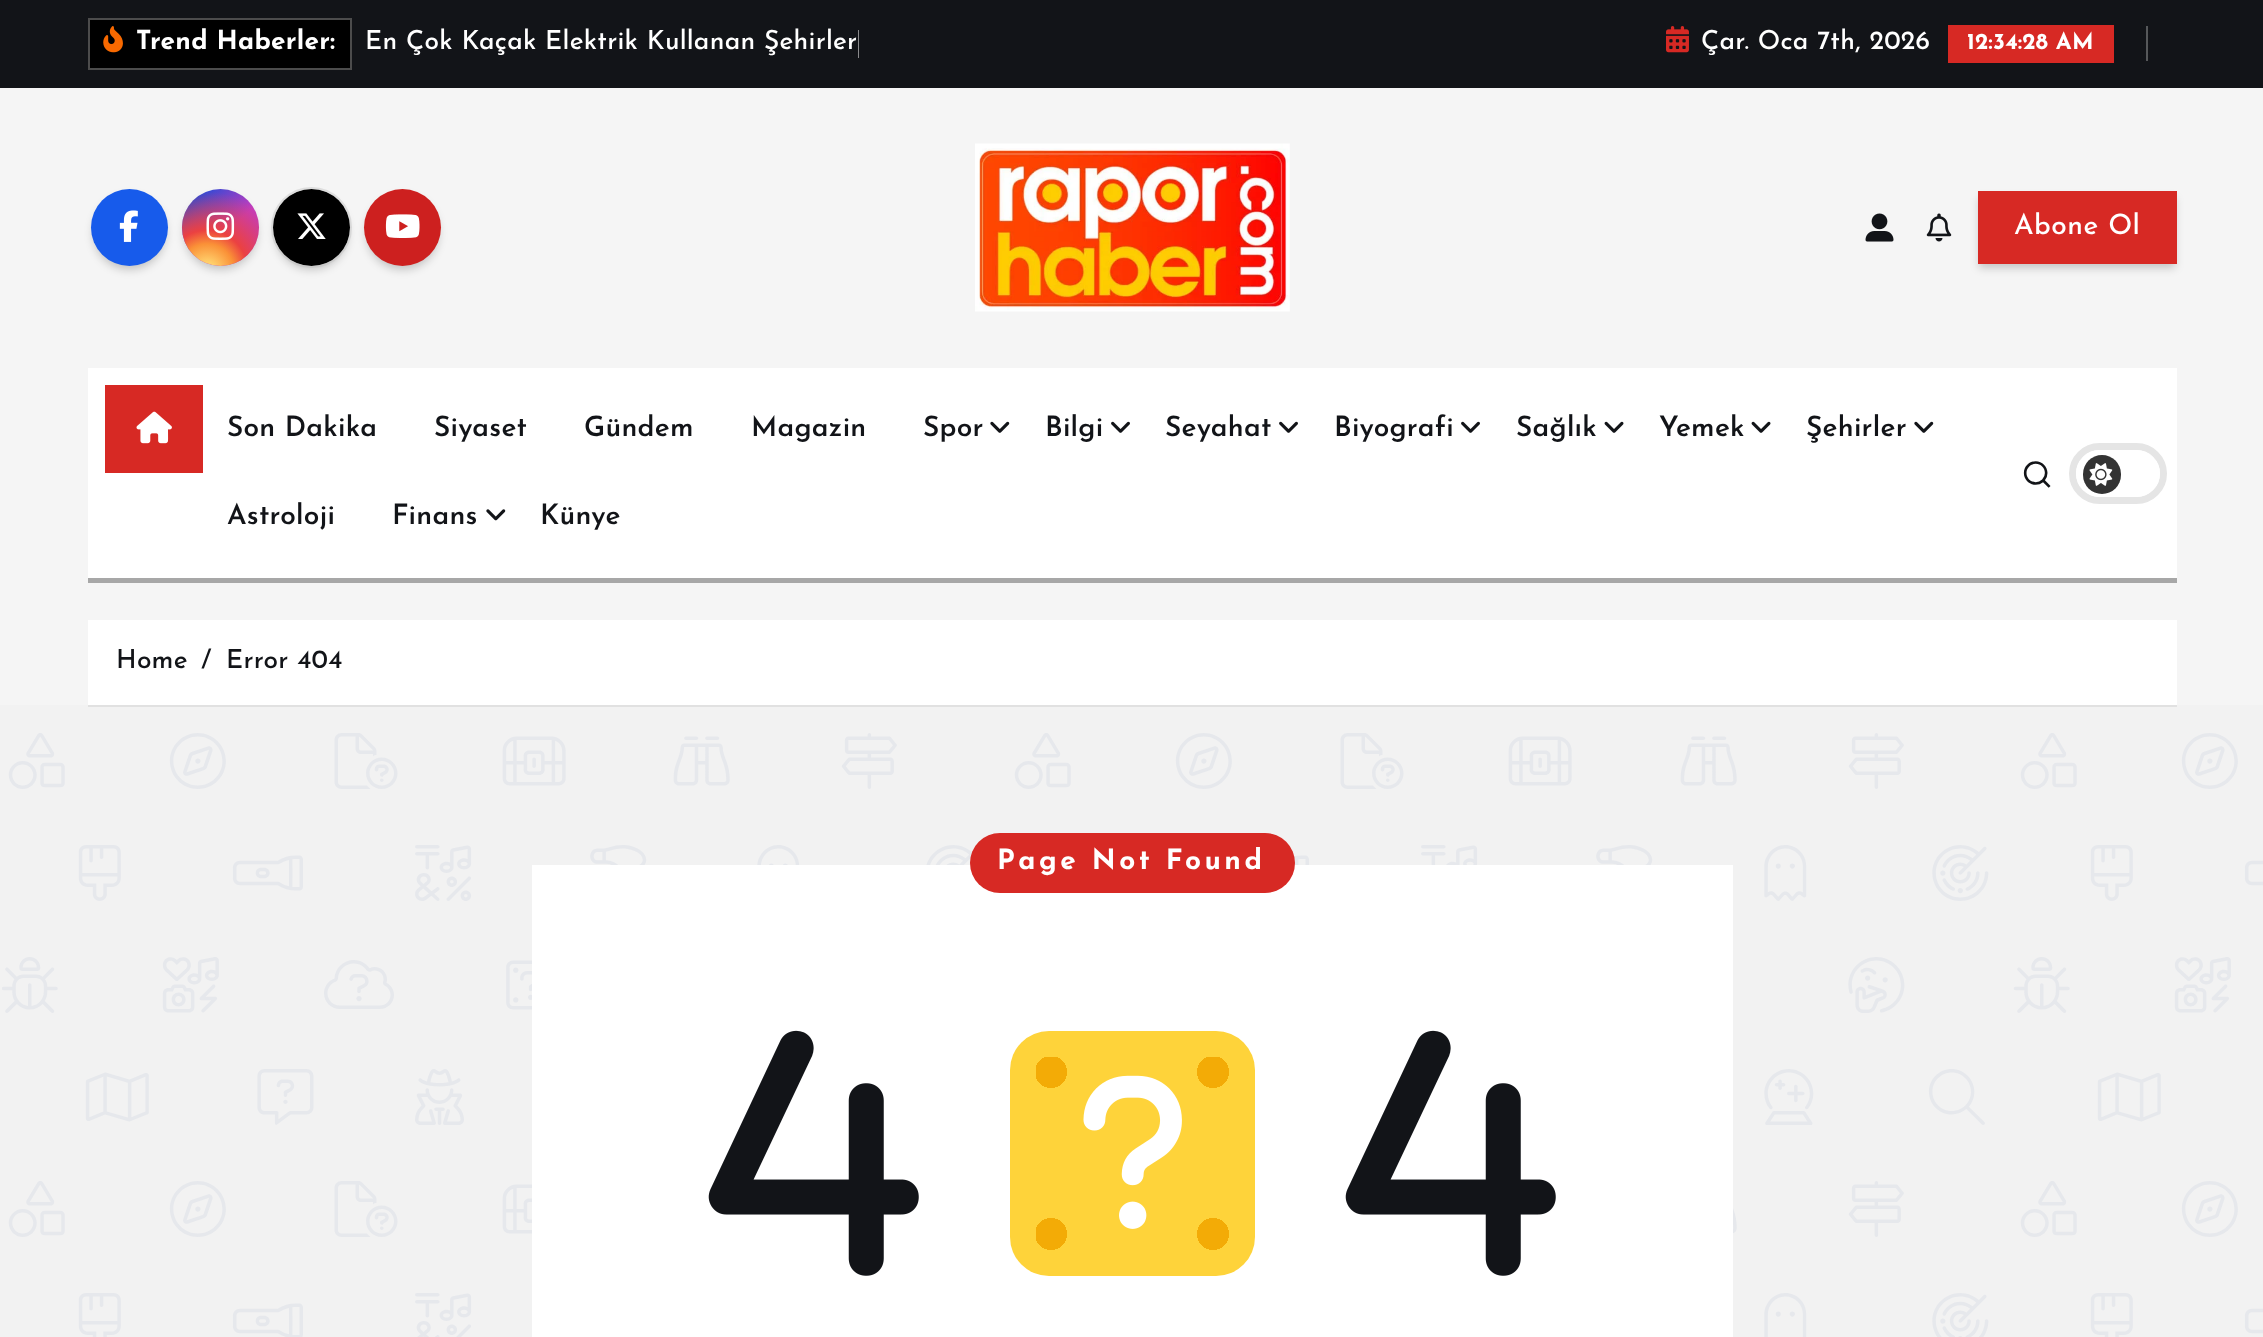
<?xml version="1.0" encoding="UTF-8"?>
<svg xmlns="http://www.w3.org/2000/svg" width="2263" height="1337">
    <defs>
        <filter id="blur1" x="-50%" y="-200%" width="200%" height="500%"><feGaussianBlur stdDeviation="4.5"/></filter>
        <linearGradient id="g1" gradientUnits="userSpaceOnUse" x1="182" y1="189" x2="259" y2="266"><stop offset="0.12" stop-color="#234BD7"/><stop offset="0.58" stop-color="#C33CBE"/></linearGradient>
        <radialGradient id="g2" gradientUnits="userSpaceOnUse" cx="207" cy="271" r="97"><stop offset="0" stop-color="#FFE17D"/><stop offset="0.1" stop-color="#FFCD69"/><stop offset="0.28" stop-color="#FA9137"/><stop offset="0.42" stop-color="#EB4141"/><stop offset="0.82" stop-color="#EB4141" stop-opacity="0"/></radialGradient>
        <radialGradient id="g3" gradientUnits="userSpaceOnUse" cx="1213" cy="1234" r="16"><stop offset="1" stop-color="#F3AB06"/><stop offset="1" stop-color="#FED33A"/></radialGradient>
        <radialGradient id="g4" gradientUnits="userSpaceOnUse" cx="1051" cy="1234" r="16"><stop offset="1" stop-color="#F3AB06"/><stop offset="1" stop-color="#FED33A"/></radialGradient>
        <radialGradient id="g5" gradientUnits="userSpaceOnUse" cx="1051" cy="1072" r="16"><stop offset="1" stop-color="#F3AB06"/><stop offset="1" stop-color="#FED33A"/></radialGradient>
        <radialGradient id="g6" gradientUnits="userSpaceOnUse" cx="1213" cy="1072" r="16"><stop offset="1" stop-color="#F3AB06"/><stop offset="1" stop-color="#FED33A"/></radialGradient>
    </defs>
    <rect width="100%" height="100%" fill="#F5F5F5"/>
    <rect x="0" y="0" width="2263" height="88" fill="#121418"/>
    <rect x="89" y="19" width="262" height="50" fill="#000000" stroke="#4C4C4C" stroke-width="2"/>
    <image x="103" y="26" width="20" height="27" href="img_01.png"/>
    <text x="136" y="49" font-family="Josefin Sans" font-size="26.25" font-weight="700" letter-spacing="0.25" fill="#FFFFFF">Trend Haberler:</text>
    <text x="365" y="49" font-family="Josefin Sans" font-size="26.25" font-weight="500" letter-spacing="0.25" fill="#FFFFFF">En Çok K</text>
    <text x="479" y="49" font-family="Josefin Sans" font-size="26.25" font-weight="500" letter-spacing="0.25" fill="#FFFFFF">açak Elektrik Kullanan Şehirler</text>
    <rect x="858" y="30" width="1" height="28" fill="#8A8A8C"/>
    <image x="1666" y="26" width="23" height="27" href="img_02.png"/>
    <text x="1701" y="49" font-family="Josefin Sans" font-size="26.25" font-weight="500" letter-spacing="0.25" fill="#FFFFFF">Çar. Oca 7th, 2026</text>
    <rect x="1948" y="25" width="166" height="38" fill="#D72924"/>
    <text x="1967" y="49" font-family="Josefin Sans" font-size="22.75" font-weight="700" letter-spacing="0.25" fill="#FFFFFF">12:34:28 AM</text>
    <rect x="2146" y="26" width="2" height="35" fill="#56585A"/>
    <rect x="93" y="196" width="73" height="74" rx="36.5" fill="#070A19" fill-opacity="0.2" filter="url(#blur1)"/>
    <circle cx="129.5" cy="227.5" r="38.5" fill="#175BEB"/>
    <image x="119" y="210" width="19" height="32" href="img_03.png"/>
    <rect x="184" y="196" width="73" height="74" rx="36.5" fill="#070A19" fill-opacity="0.2" filter="url(#blur1)"/>
    <circle cx="220.5" cy="227.5" r="38.5" fill="url(#g1)"/>
    <circle cx="220.5" cy="227.5" r="38.5" fill="url(#g2)"/>
    <image x="206" y="212" width="29" height="28" href="img_04.png"/>
    <rect x="275" y="196" width="73" height="74" rx="36.5" fill="#070A19" fill-opacity="0.2" filter="url(#blur1)"/>
    <circle cx="311.5" cy="227.5" r="38.5" fill="#000000"/>
    <image x="297" y="213" width="29" height="26" href="img_05.png"/>
    <circle cx="311.5" cy="227.5" r="39.5" fill="none" stroke="#BDBDBD" stroke-opacity="0.4" stroke-width="2"/>
    <rect x="366" y="196" width="73" height="74" rx="36.5" fill="#070A19" fill-opacity="0.2" filter="url(#blur1)"/>
    <circle cx="402.5" cy="227.5" r="38.5" fill="#CD201F"/>
    <image x="385" y="214" width="35" height="24" href="img_06.png"/>
    <image x="975" y="143" width="315" height="169" href="img_07.png"/>
    <image x="1865" y="213" width="29" height="29" href="img_08.png"/>
    <image x="1926" y="213" width="26" height="29" href="img_09.png"/>
    <rect x="1979" y="198" width="196" height="70" fill="#070A19" fill-opacity="0.2" filter="url(#blur1)"/>
    <rect x="1978" y="191" width="199" height="73" fill="#D72924"/>
    <text x="2014" y="234" font-family="Josefin Sans" font-size="28" font-weight="500" letter-spacing="0.5" fill="#FFFFFF">Abone Ol</text>
    <rect x="88" y="368" width="2089" height="210" fill="#FFFFFF"/>
    <rect x="88" y="578" width="2089" height="5" fill="#A7A7A7"/>
    <rect x="105" y="385" width="98" height="88" fill="#D72924"/>
    <image x="136" y="411" width="36" height="33" href="img_10.png"/>
    <text x="227" y="436" font-family="Josefin Sans" font-size="28" font-weight="600" letter-spacing="0.25" fill="#121418">Son Dakika</text>
    <text x="434" y="436" font-family="Josefin Sans" font-size="28" font-weight="600" letter-spacing="0.25" fill="#121418">Siyaset</text>
    <text x="584" y="436" font-family="Josefin Sans" font-size="28" font-weight="600" letter-spacing="0.25" fill="#121418">Gündem</text>
    <text x="751" y="436" font-family="Josefin Sans" font-size="28" font-weight="600" letter-spacing="0.25" fill="#121418">Magazin</text>
    <text x="923" y="436" font-family="Josefin Sans" font-size="28" font-weight="600" letter-spacing="0.25" fill="#121418">Spor</text>
    <image x="990" y="421" width="20" height="12" href="img_11.png"/>
    <text x="1045" y="436" font-family="Josefin Sans" font-size="28" font-weight="600" letter-spacing="0.25" fill="#121418">Bilgi</text>
    <image x="1111" y="421" width="19" height="12" href="img_12.png"/>
    <text x="1165" y="436" font-family="Josefin Sans" font-size="28" font-weight="600" letter-spacing="0.25" fill="#121418">Seyahat</text>
    <image x="1279" y="421" width="19" height="12" href="img_12.png"/>
    <text x="1334" y="436" font-family="Josefin Sans" font-size="28" font-weight="600" letter-spacing="0.25" fill="#121418">Biyografi</text>
    <image x="1461" y="421" width="19" height="12" href="img_12.png"/>
    <text x="1516" y="436" font-family="Josefin Sans" font-size="28" font-weight="600" letter-spacing="0.25" fill="#121418">Sağlık</text>
    <image x="1604" y="421" width="20" height="12" href="img_13.png"/>
    <text x="1659" y="436" font-family="Josefin Sans" font-size="28" font-weight="600" letter-spacing="0.25" fill="#121418">Yemek</text>
    <image x="1751" y="421" width="20" height="12" href="img_13.png"/>
    <text x="1806" y="436" font-family="Josefin Sans" font-size="28" font-weight="600" letter-spacing="0.25" fill="#121418">Şehirler</text>
    <image x="1914" y="421" width="20" height="12" href="img_11.png"/>
    <text x="227" y="524" font-family="Josefin Sans" font-size="28" font-weight="600" letter-spacing="0.25" fill="#121418">Astroloji</text>
    <text x="392" y="524" font-family="Josefin Sans" font-size="28" font-weight="600" letter-spacing="0.25" fill="#121418">Finans</text>
    <image x="486" y="509" width="20" height="12" href="img_14.png"/>
    <text x="540" y="524" font-family="Josefin Sans" font-size="28" font-weight="600" letter-spacing="0.25" fill="#121418">Künye</text>
    <image x="2023" y="461" width="28" height="27" href="img_15.png"/>
    <rect x="2072.5" y="446.5" width="91" height="54" rx="27" fill="none" stroke="#E5E5E5" stroke-width="7"/>
    <rect x="2076" y="450" width="84" height="47" rx="23.5" fill="#FFFFFF"/>
    <rect x="2083" y="455" width="38" height="39" rx="19" fill="#333333"/>
    <image x="2089" y="463" width="24" height="23" href="img_16.png"/>
    <rect x="0" y="705" width="2263" height="632" fill="#F2F2F2"/>
    <rect x="88" y="705" width="2089" height="2" fill="#E1E1E1"/>
    <rect x="88" y="620" width="2089" height="85" fill="#FFFFFF"/>
    <text x="116" y="668" font-family="Josefin Sans" font-size="26.25" font-weight="500" letter-spacing="0.25" fill="#121418">Home</text>
    <text x="201" y="668" font-family="Josefin Sans" font-size="26.25" font-weight="500" letter-spacing="0.25" fill="#121418">/</text>
    <text x="226" y="668" font-family="Josefin Sans" font-size="26.25" font-weight="500" letter-spacing="0.25" fill="#121418">Error 404</text>
    <image x="2" y="733" width="2261" height="604" href="img_17.png"/>
    <rect x="532" y="865" width="1201" height="472" fill="#FFFFFF"/>
    <rect x="970" y="833" width="325" height="60" rx="30" fill="#D72924"/>
    <text x="997" y="869" font-family="Josefin Sans" font-size="28" font-weight="700" letter-spacing="3.5" fill="#FFFFFF">Page Not Found</text>
    <image x="708" y="1030" width="211" height="246" href="img_18.png"/>
    <rect x="1010" y="1031" width="245" height="245" rx="39" fill="#FED33A"/>
    <rect x="1197" y="1218" width="32" height="32" fill="url(#g3)"/>
    <rect x="1036" y="1218" width="31" height="32" fill="url(#g4)"/>
    <rect x="1036" y="1057" width="31" height="31" fill="url(#g5)"/>
    <rect x="1197" y="1057" width="32" height="31" fill="url(#g6)"/>
    <image x="1083" y="1075" width="99" height="154" href="img_19.png"/>
    <image x="1345" y="1030" width="211" height="246" href="img_18.png"/>
</svg>
